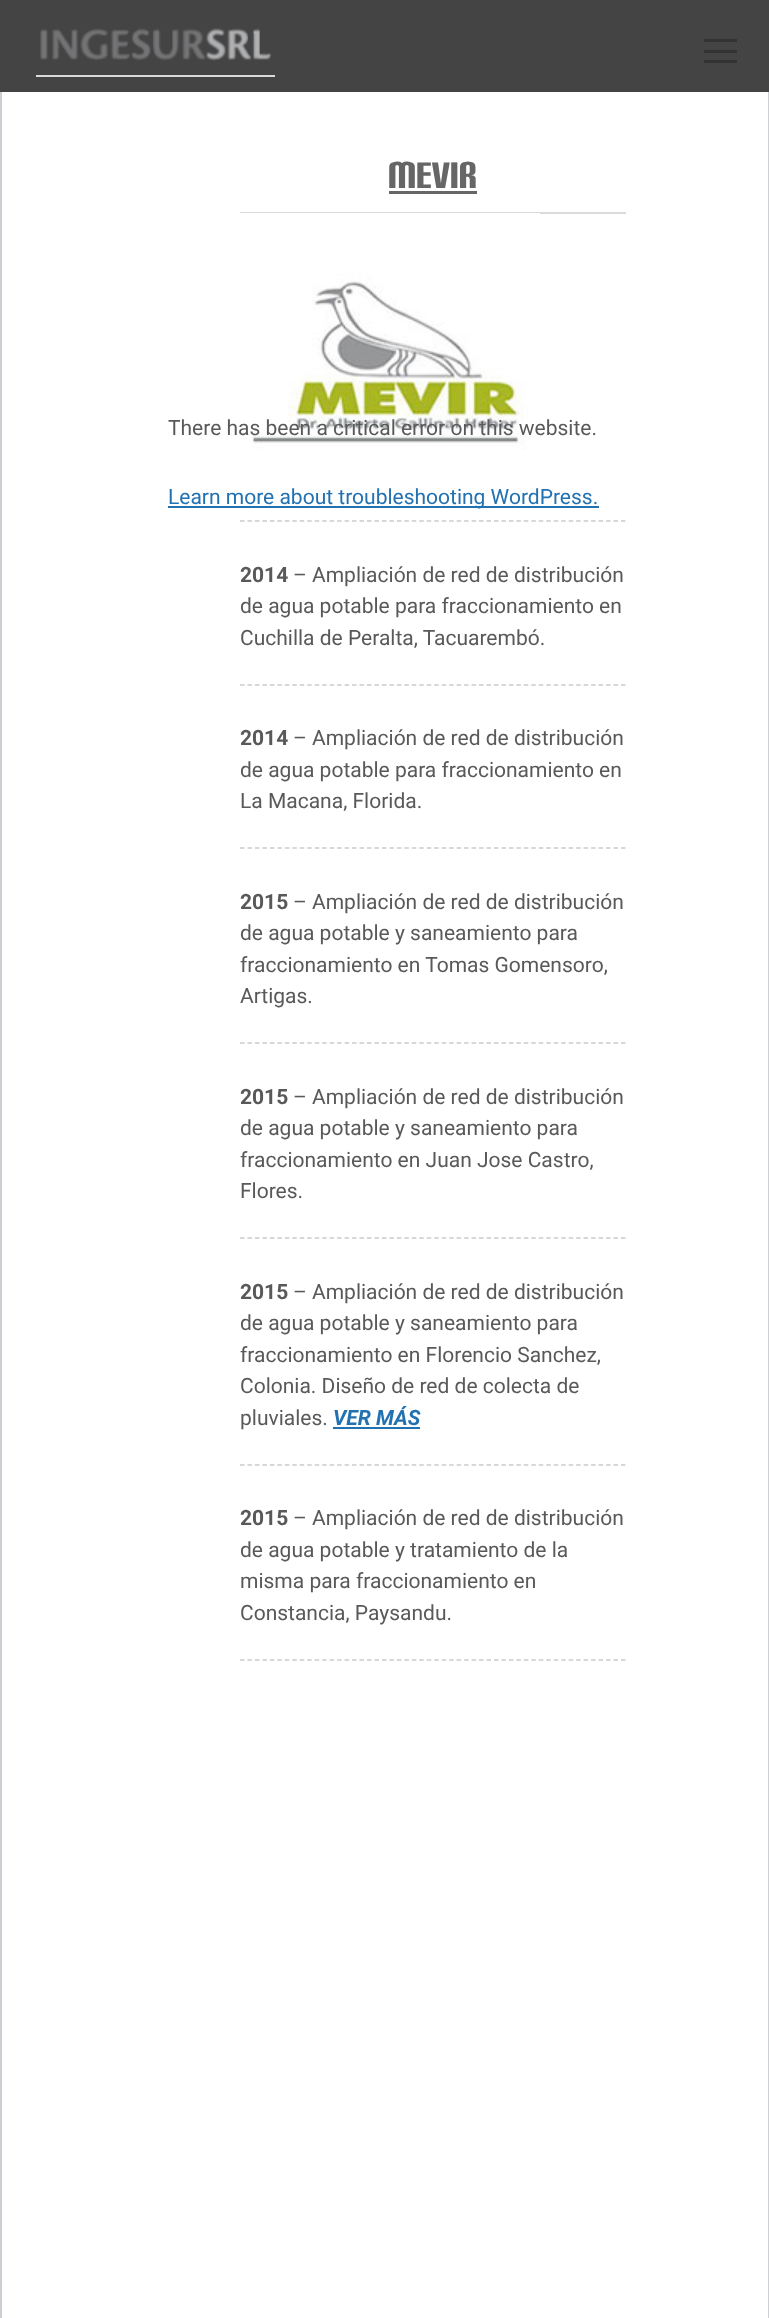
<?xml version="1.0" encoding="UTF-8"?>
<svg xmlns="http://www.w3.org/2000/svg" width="769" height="2318">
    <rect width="100%" height="100%" fill="#FFFFFF"/>
    <rect x="1" y="76" width="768" height="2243" fill="none" stroke="#CCD0D4" stroke-width="2"/>
    <rect x="0" y="0" width="769" height="92" fill="#444444"/>
    <image x="40" y="28" width="232" height="33" href="img_01.png"/>
    <rect x="36" y="75" width="239" height="2" fill="#DADADA"/>
    <rect x="704" y="60" width="33" height="3" fill="#333333"/>
    <rect x="704" y="50" width="33" height="3" fill="#333333"/>
    <rect x="704" y="39" width="33" height="3" fill="#333333"/>
    <rect x="240" y="212" width="386" height="2" fill="#DADADA"/>
    <text x="388" y="188" font-family="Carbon" font-size="36" fill="#666666">MEVIR</text>
    <rect x="389" y="191" width="88" height="3" fill="#666666"/>
    <image x="240" y="213" width="300" height="237" href="img_02.png"/>
    <path d="M 240 521 H 625.5" fill="none" stroke="#CCCCCC" stroke-width="1.5" stroke-dasharray="4.5 2.97"/>
    <text x="240" y="582" font-family="Roboto" font-size="21" font-weight="700" fill="#595959">2014</text>
    <text x="293" y="582" font-family="Roboto" font-size="21" fill="#595959">– Ampliación de red de distribución</text>
    <text font-family="Roboto" font-size="21" fill="#595959">
        <tspan x="240" y="613">de agua potable para fraccionamiento en</tspan>
        <tspan x="240" y="645">Cuchilla de Peralta, Tacuarembó.</tspan>
    </text>
    <path d="M 240 685 H 625.5" fill="none" stroke="#CCCCCC" stroke-width="1.5" stroke-dasharray="4.5 2.97"/>
    <text x="240" y="745" font-family="Roboto" font-size="21" font-weight="700" fill="#595959">2014</text>
    <text x="293" y="745" font-family="Roboto" font-size="21" fill="#595959">– Ampliación de red de distribución</text>
    <text font-family="Roboto" font-size="21" fill="#595959">
        <tspan x="240" y="777">de agua potable para fraccionamiento en</tspan>
        <tspan x="240" y="808">La Macana, Florida.</tspan>
    </text>
    <path d="M 240 848 H 625.5" fill="none" stroke="#CCCCCC" stroke-width="1.5" stroke-dasharray="4.5 2.97"/>
    <text x="240" y="909" font-family="Roboto" font-size="21" font-weight="700" fill="#595959">2015</text>
    <text x="293" y="909" font-family="Roboto" font-size="21" fill="#595959">– Ampliación de red de distribución</text>
    <text font-family="Roboto" font-size="21" fill="#595959">
        <tspan x="240" y="940">de agua potable y saneamiento para</tspan>
        <tspan x="240" y="972">fraccionamiento en Tomas Gomensoro,</tspan>
        <tspan x="240" y="1003">Artigas.</tspan>
    </text>
    <path d="M 240 1043 H 625.5" fill="none" stroke="#CCCCCC" stroke-width="1.5" stroke-dasharray="4.5 2.97"/>
    <text x="240" y="1104" font-family="Roboto" font-size="21" font-weight="700" fill="#595959">2015</text>
    <text x="293" y="1104" font-family="Roboto" font-size="21" fill="#595959">– Ampliación de red de distribución</text>
    <text font-family="Roboto" font-size="21" fill="#595959">
        <tspan x="240" y="1135">de agua potable y saneamiento para</tspan>
        <tspan x="240" y="1167">fraccionamiento en Juan Jose Castro,</tspan>
        <tspan x="240" y="1198">Flores.</tspan>
    </text>
    <path d="M 240 1238 H 625.5" fill="none" stroke="#CCCCCC" stroke-width="1.5" stroke-dasharray="4.5 2.97"/>
    <text x="240" y="1299" font-family="Roboto" font-size="21" font-weight="700" fill="#595959">2015</text>
    <text x="293" y="1299" font-family="Roboto" font-size="21" fill="#595959">– Ampliación de red de distribución</text>
    <text font-family="Roboto" font-size="21" fill="#595959">
        <tspan x="240" y="1330">de agua potable y saneamiento para</tspan>
        <tspan x="240" y="1362">fraccionamiento en Florencio Sanchez,</tspan>
        <tspan x="240" y="1393">Colonia. Diseño de red de colecta de</tspan>
        <tspan x="240" y="1425">pluviales.</tspan>
    </text>
    <text x="333" y="1425" font-family="Roboto" font-size="21" font-weight="700" font-style="italic" fill="#2271B1">VER MÁS</text>
    <rect x="333" y="1427" width="87" height="2" fill="#2271B1"/>
    <path d="M 240 1465 H 625.5" fill="none" stroke="#CCCCCC" stroke-width="1.5" stroke-dasharray="4.5 2.97"/>
    <text x="240" y="1525" font-family="Roboto" font-size="21" font-weight="700" fill="#595959">2015</text>
    <text x="293" y="1525" font-family="Roboto" font-size="21" fill="#595959">– Ampliación de red de distribución</text>
    <text font-family="Roboto" font-size="21" fill="#595959">
        <tspan x="240" y="1557">de agua potable y tratamiento de la</tspan>
        <tspan x="240" y="1588">misma para fraccionamiento en</tspan>
        <tspan x="240" y="1620">Constancia, Paysandu.</tspan>
    </text>
    <path d="M 240 1660 H 625.5" fill="none" stroke="#CCCCCC" stroke-width="1.5" stroke-dasharray="4.5 2.97"/>
    <text x="168" y="435" font-family="Roboto" font-size="21" fill="#595959">There has been a critical error on this website.</text>
    <rect x="168" y="506" width="431" height="2" fill="#2271B1"/>
    <text x="168" y="504" font-family="Roboto" font-size="21" fill="#2271B1">Learn more about troubleshooting WordPress.</text>
</svg>
